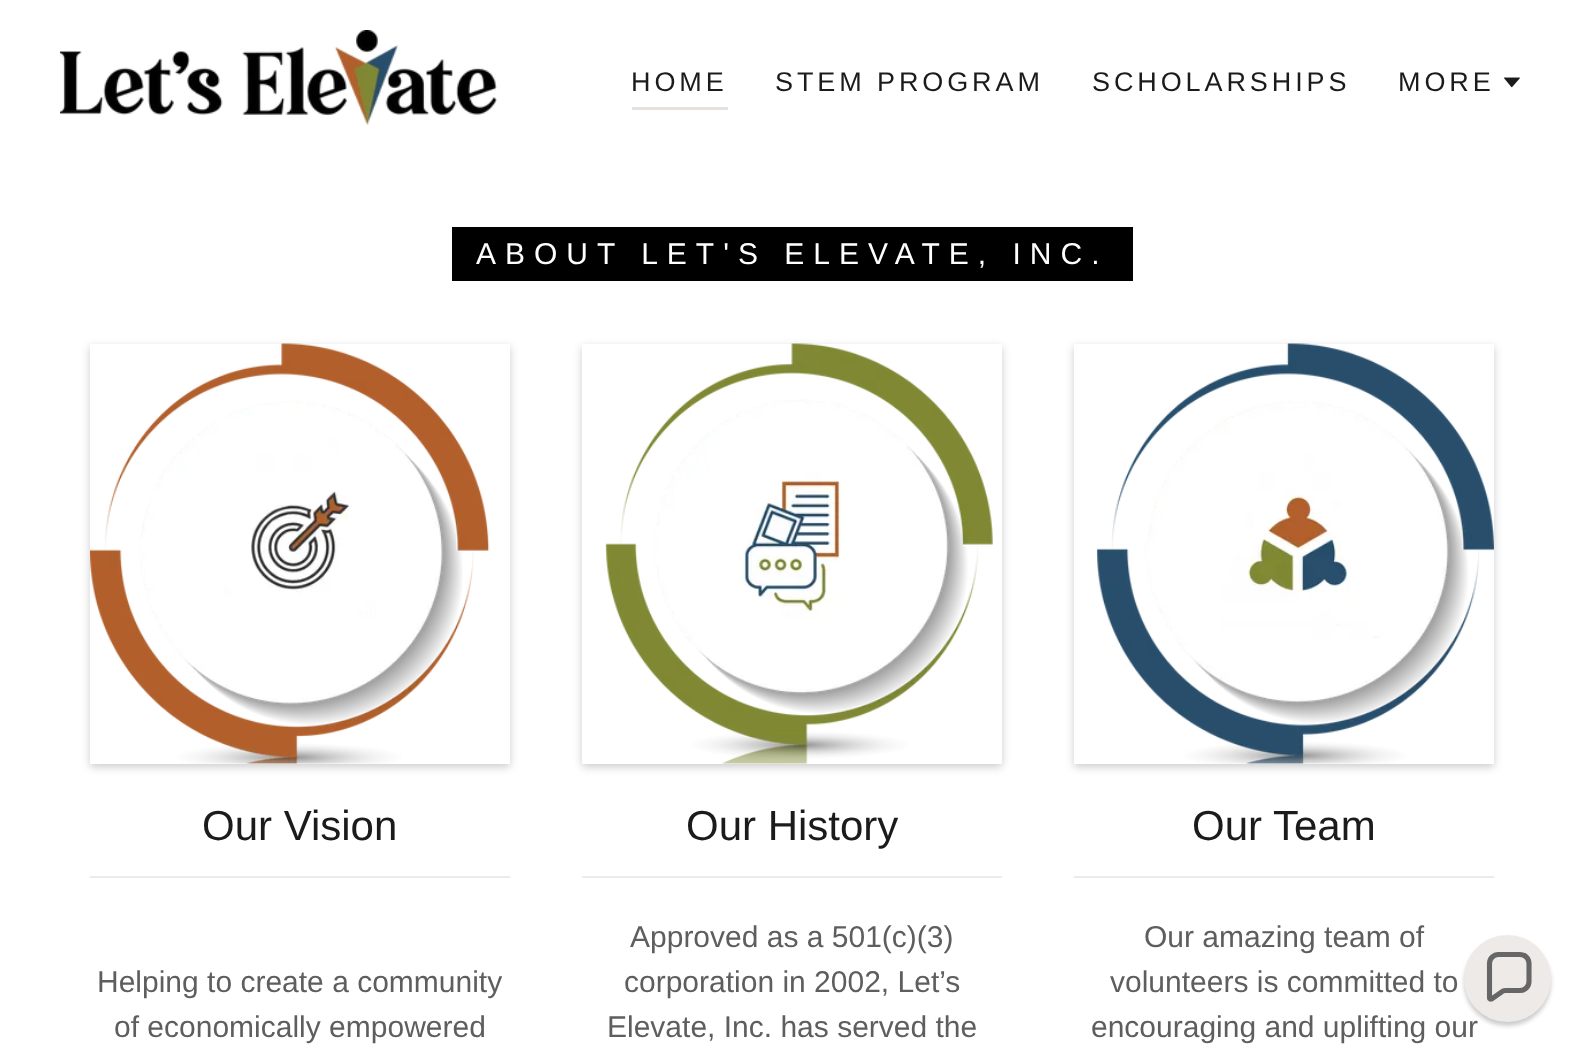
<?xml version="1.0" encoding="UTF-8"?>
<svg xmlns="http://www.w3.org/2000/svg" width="1583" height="1054">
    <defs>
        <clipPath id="clip1"><path d="M 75 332 H 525 V 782 H 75 Z M 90 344 H 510 V 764 H 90 Z" clip-rule="evenodd"/></clipPath>
        <filter id="blur1" x="-50%" y="-200%" width="200%" height="500%"><feGaussianBlur stdDeviation="4.5"/></filter>
        <clipPath id="clip2"><path d="M 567 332 H 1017 V 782 H 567 Z M 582 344 H 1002 V 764 H 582 Z" clip-rule="evenodd"/></clipPath>
        <clipPath id="clip3"><path d="M 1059 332 H 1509 V 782 H 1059 Z M 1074 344 H 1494 V 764 H 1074 Z" clip-rule="evenodd"/></clipPath>
        <filter id="blur2" x="-50%" y="-200%" width="200%" height="500%"><feGaussianBlur stdDeviation="2"/></filter>
    </defs>
    <rect width="100%" height="100%" fill="#FFFFFF"/>
    <image x="60" y="30" width="437" height="96" href="img_01.png"/>
    <rect x="632" y="107" width="96" height="3" fill="#E7E1DD"/>
    <text x="631" y="91" font-family="Liberation Sans" font-size="27" letter-spacing="3.9" fill="#1B1B1B">HOME</text>
    <text x="775" y="91" font-family="Liberation Sans" font-size="27" letter-spacing="3.9" fill="#1B1B1B">STEM PROGRAM</text>
    <text x="1092" y="91" font-family="Liberation Sans" font-size="27" letter-spacing="3.9" fill="#1B1B1B">SCHOLARSHIPS</text>
    <text x="1398" y="91" font-family="Liberation Sans" font-size="27" letter-spacing="3.9" fill="#1B1B1B">MORE</text>
    <image x="1504" y="77" width="16" height="11" href="img_02.png"/>
    <rect x="452" y="227" width="681" height="54" fill="#000000"/>
    <text x="476" y="264" font-family="Liberation Sans" font-size="30" letter-spacing="9" fill="#FFFFFF">ABOUT LET'S ELEVATE, INC.</text>
    <g clip-path="url(#clip1)">
        <rect x="90" y="347" width="420" height="420" fill="#000000" fill-opacity="0.2" filter="url(#blur1)"/>
    </g>
    <image x="90" y="343" width="400" height="421" href="img_03.png"/>
    <rect x="90" y="876" width="420" height="2" fill="#EBEBEB"/>
    <text x="202" y="840" font-family="Liberation Sans" font-size="42" fill="#1B1B1B">Our Vision</text>
    <text x="97" y="992" font-family="Liberation Sans" font-size="30" fill="#5E5E5E">Helping to create a community</text>
    <text x="114" y="1037" font-family="Liberation Sans" font-size="30" fill="#5E5E5E">of economically empowered</text>
    <g clip-path="url(#clip2)">
        <rect x="582" y="347" width="420" height="420" fill="#000000" fill-opacity="0.2" filter="url(#blur1)"/>
    </g>
    <image x="605" y="343" width="388" height="421" href="img_04.png"/>
    <rect x="582" y="876" width="420" height="2" fill="#EBEBEB"/>
    <text x="686" y="840" font-family="Liberation Sans" font-size="42" fill="#1B1B1B">Our History</text>
    <text x="630" y="947" font-family="Liberation Sans" font-size="30" fill="#5E5E5E">Approved as a 501(c)(3)</text>
    <text x="624" y="992" font-family="Liberation Sans" font-size="30" fill="#5E5E5E">corporation in 2002, Let’s</text>
    <text x="607" y="1037" font-family="Liberation Sans" font-size="30" fill="#5E5E5E">Elevate, Inc. has served the</text>
    <g clip-path="url(#clip3)">
        <rect x="1074" y="347" width="420" height="420" fill="#000000" fill-opacity="0.2" filter="url(#blur1)"/>
    </g>
    <image x="1096" y="343" width="398" height="421" href="img_05.png"/>
    <rect x="1074" y="876" width="420" height="2" fill="#EBEBEB"/>
    <text x="1192" y="840" font-family="Liberation Sans" font-size="42" fill="#1B1B1B">Our Team</text>
    <text x="1144" y="947" font-family="Liberation Sans" font-size="30" fill="#5E5E5E">Our amazing team of</text>
    <text x="1110" y="992" font-family="Liberation Sans" font-size="30" fill="#5E5E5E">volunteers is committed to</text>
    <text x="1091" y="1037" font-family="Liberation Sans" font-size="30" fill="#5E5E5E">encouraging and uplifting our</text>
    <rect x="1464" y="939" width="87" height="87" rx="43.5" fill="#0D0D0D" fill-opacity="0.2" filter="url(#blur2)"/>
    <circle cx="1507.5" cy="978.5" r="43.5" fill="#EEEAE7"/>
    <path d="M 1520 954.5 H 1498.5 C 1493.5 954.5 1489.5 958.5 1489.5 963.5 V 998 C 1489.5 999 1490.5 999.5 1491.5 999 L 1501.5 992 C 1502.5 991 1504 990.5 1505.5 990.5 H 1520 C 1525 990.5 1529 986.5 1529 981.5 V 963.5 C 1529 958.5 1525 954.5 1520 954.5 Z" fill="none" stroke="#666666" stroke-width="5.1"/>
</svg>
